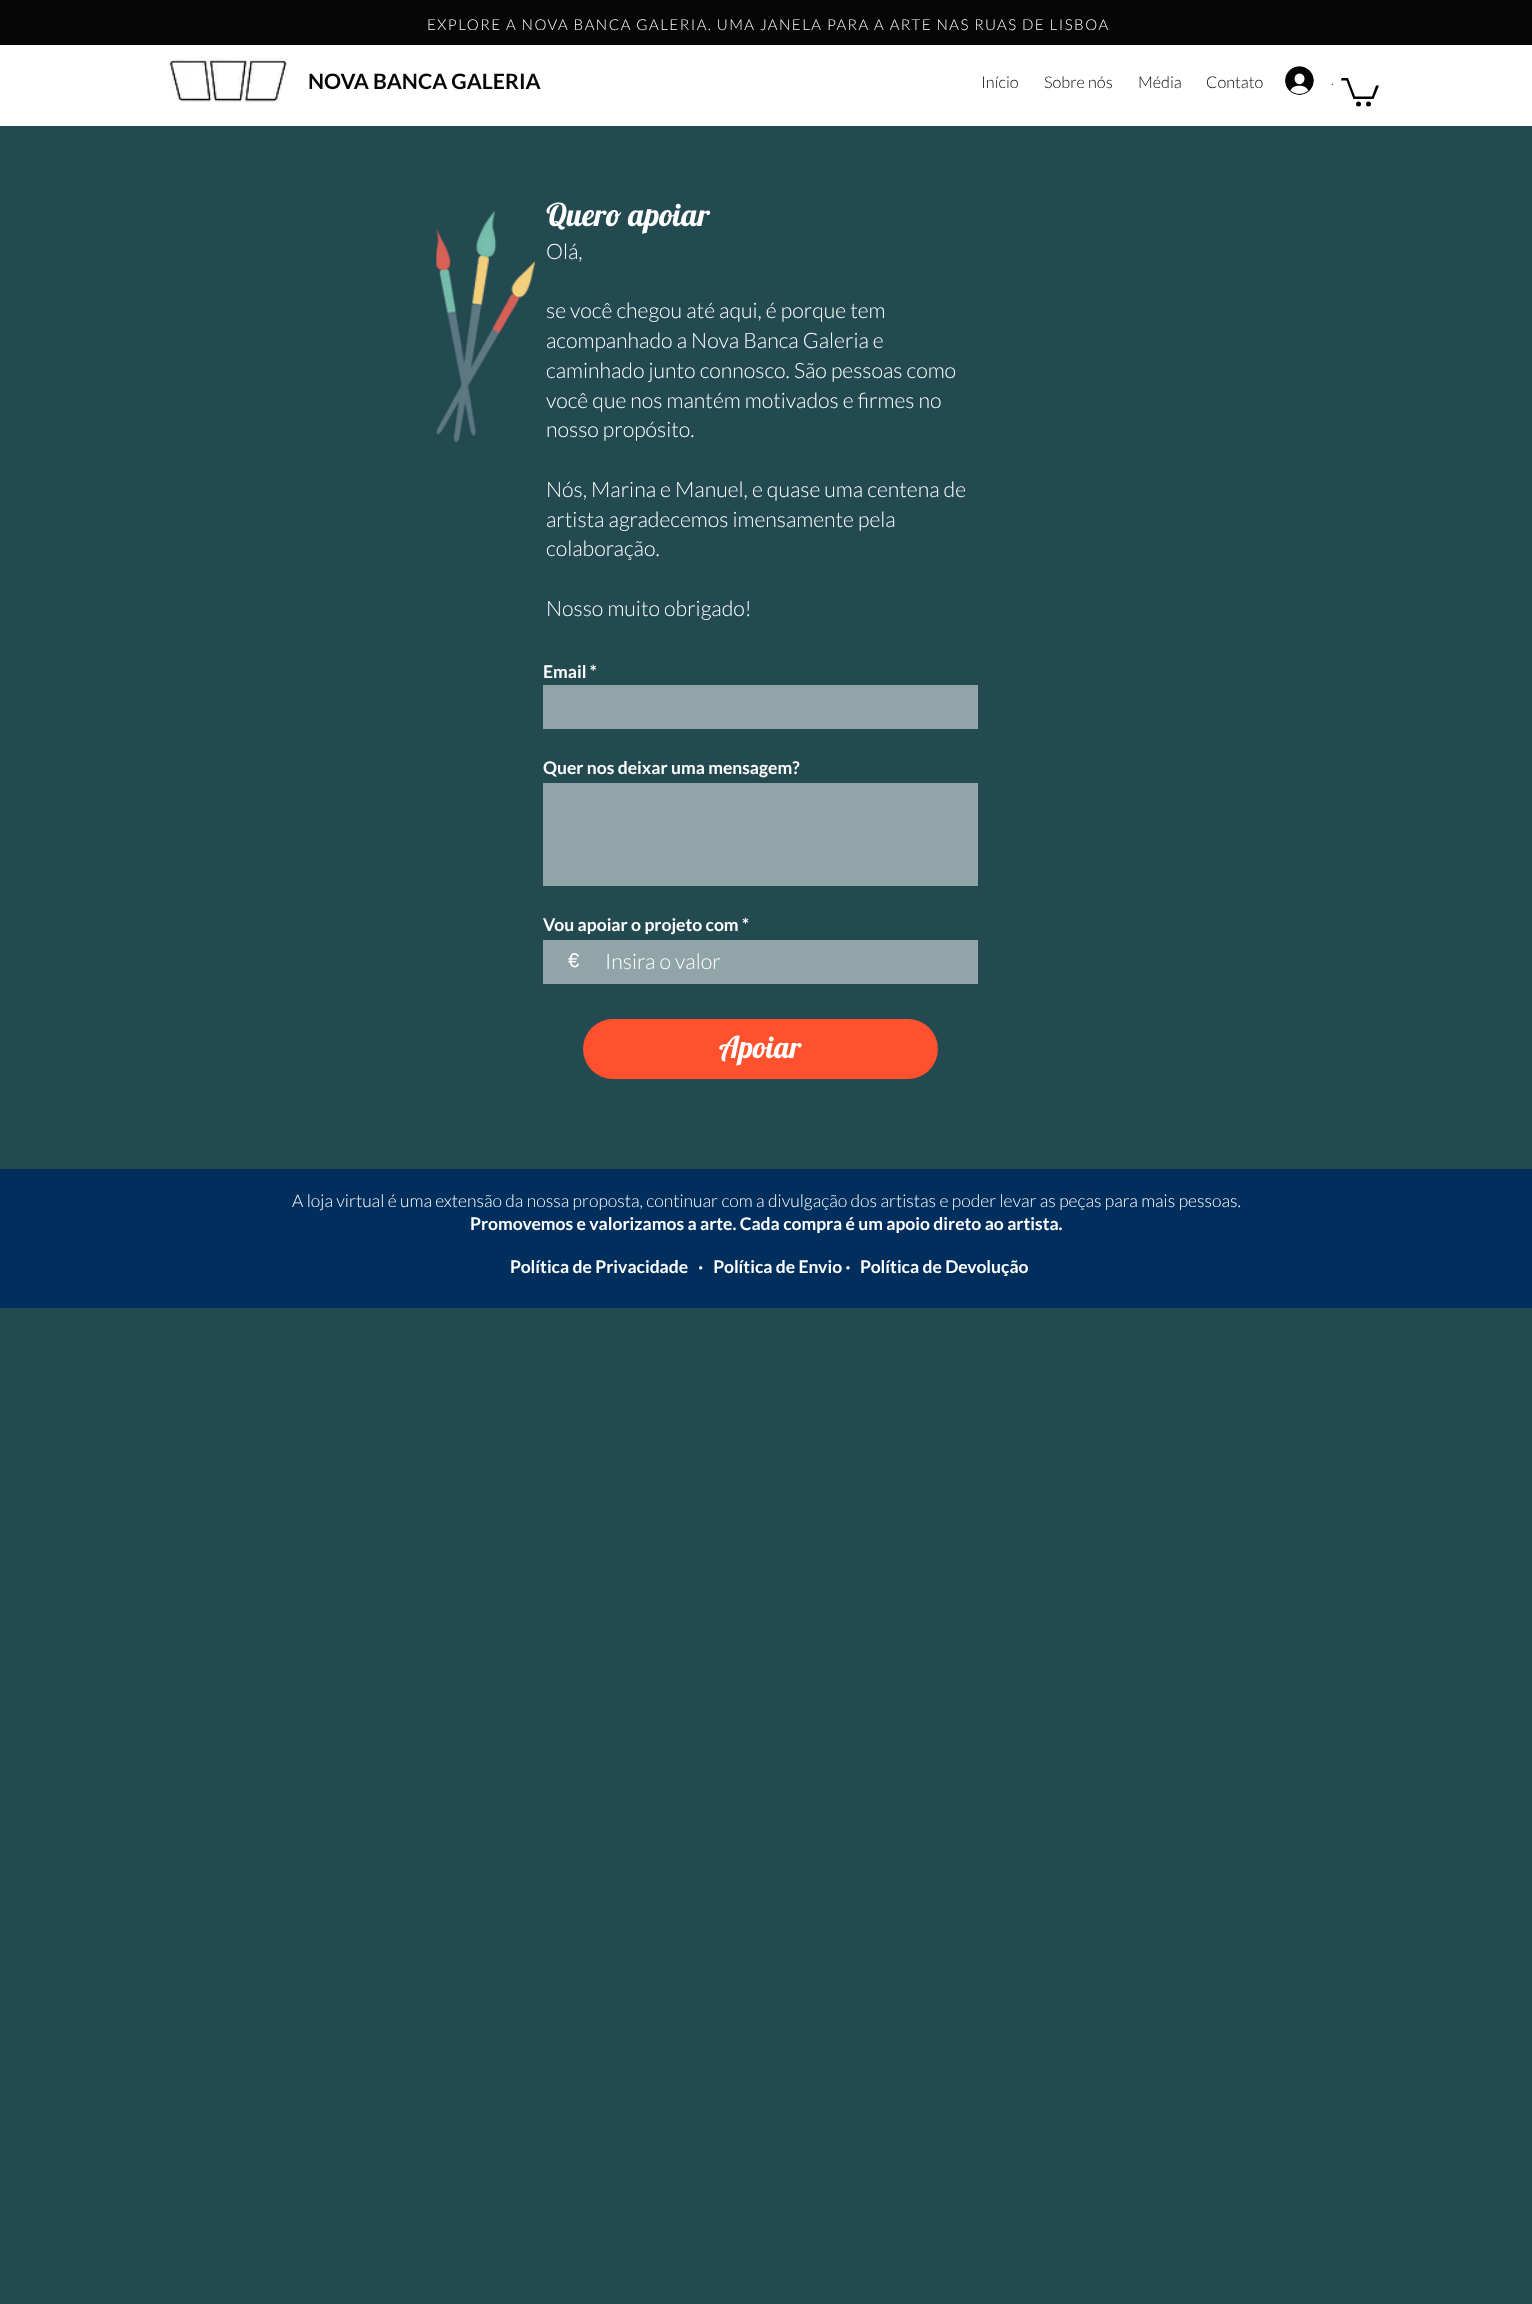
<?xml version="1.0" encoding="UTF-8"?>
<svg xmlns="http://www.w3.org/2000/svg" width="1532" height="2304">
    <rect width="100%" height="100%" fill="#234951"/>
    <rect x="0" y="0" width="1532" height="45" fill="#060606"/>
    <text x="427" y="30" font-family="Lato" font-size="15" font-weight="300" letter-spacing="1.5" fill="#FFFFFF">EXPLORE A NOVA BANCA GALERIA. UMA JANELA PARA A ARTE NAS RUAS DE LISBOA</text>
    <rect x="0" y="45" width="1532" height="81" fill="#FFFFFF"/>
    <image x="168" y="57" width="119" height="45" href="img_01.png"/>
    <text x="308" y="89" font-family="Lato" font-size="21.25" font-weight="700" fill="#060606">NOVA BANCA GALERIA</text>
    <text x="981" y="88" font-family="Lato" font-size="16.25" font-weight="300" fill="#060606">Início</text>
    <text x="1044" y="88" font-family="Lato" font-size="16.25" font-weight="300" fill="#060606">Sobre nós</text>
    <text x="1138" y="88" font-family="Lato" font-size="16.25" font-weight="300" fill="#060606">Média</text>
    <text x="1206" y="88" font-family="Lato" font-size="16.25" font-weight="300" fill="#060606">Contato</text>
    <image x="1285" y="66" width="29" height="29" href="img_02.png"/>
    <text x="1331" y="85" font-family="Lato" font-size="15" font-weight="300" fill="#184180">.</text>
    <path d="M 1379 85.5 L 1373.5 99 H 1353.5 L 1346.5 80.5 H 1341 L 1341.5 78 H 1348 L 1355 96.5 H 1372 L 1376 85.5" fill="#000000"/>
    <circle cx="1368.5" cy="104" r="2.5" fill="#000000"/>
    <circle cx="1358.5" cy="104" r="2.5" fill="#000000"/>
    <image x="436" y="211" width="99" height="232" href="img_03.png"/>
    <text x="546" y="226" font-family="Lobster" font-size="31.25" fill="#FFFFFF">Quero apoiar</text>
    <text x="546" y="259" font-family="Lato" font-size="21.25" font-weight="300" fill="#FFFFFF">Olá,</text>
    <text font-family="Lato" font-size="21.25" font-weight="300" fill="#FFFFFF">
        <tspan x="546" y="318">se você chegou até aqui, é porque tem</tspan>
        <tspan x="546" y="348">acompanhado a Nova Banca Galeria e</tspan>
        <tspan x="546" y="378">caminhado junto connosco. São pessoas como</tspan>
        <tspan x="546" y="408">você que nos mantém motivados e firmes no</tspan>
        <tspan x="546" y="437">nosso propósito.</tspan>
    </text>
    <text font-family="Lato" font-size="21.25" font-weight="300" fill="#FFFFFF">
        <tspan x="546" y="497">Nós, Marina e Manuel, e quase uma centena de</tspan>
        <tspan x="546" y="527">artista agradecemos imensamente pela</tspan>
        <tspan x="546" y="556">colaboração.</tspan>
    </text>
    <text x="546" y="616" font-family="Lato" font-size="21.25" font-weight="300" fill="#FFFFFF">Nosso muito obrigado!</text>
    <text x="543" y="678" font-family="Lato" font-size="17.5" font-weight="700" fill="#FFFFFF">Email *</text>
    <rect x="543" y="685" width="435" height="44" fill="#91A4A8"/>
    <text x="543" y="774" font-family="Lato" font-size="17.5" font-weight="700" fill="#FFFFFF">Quer nos deixar uma mensagem?</text>
    <rect x="543" y="783" width="435" height="103" fill="#91A4A8"/>
    <text x="543" y="931" font-family="Lato" font-size="17.5" font-weight="700" fill="#FFFFFF">Vou apoiar o projeto com *</text>
    <rect x="543" y="940" width="435" height="44" fill="#91A4A8"/>
    <text x="568" y="967" font-family="helvetica" font-size="20" fill="#FFFFFF">€</text>
    <text x="605" y="969" font-family="Lato" font-size="21.25" font-weight="300" fill="#FFFFFF">Insira o valor</text>
    <rect x="583" y="1019" width="355" height="60" rx="30" fill="#FF512E"/>
    <text x="719" y="1058" font-family="Lobster" font-size="30" fill="#FFFFFF">Apoiar</text>
    <rect x="0" y="1169" width="1532" height="139" fill="#002E5D"/>
    <text x="292" y="1207" font-family="Lato" font-size="17.5" font-weight="300" fill="#FFFFFF">A loja virtual é uma extensão da nossa proposta, continuar com a divulgação dos artistas e poder levar as peças para mais pessoas.</text>
    <text x="470" y="1230" font-family="Lato" font-size="17.5" font-weight="700" fill="#FFFFFF">Promovemos e valorizamos a arte. Cada compra é um apoio direto ao artista.</text>
    <text x="510" y="1273" font-family="Lato" font-size="17.5" font-weight="700" fill="#FFFFFF" xml:space="preserve">Política de Privacidade   ·   Política de Envio ·</text>
    <text x="860" y="1273" font-family="Lato" font-size="17.5" font-weight="700" fill="#FFFFFF">Política de Devolução</text>
</svg>
